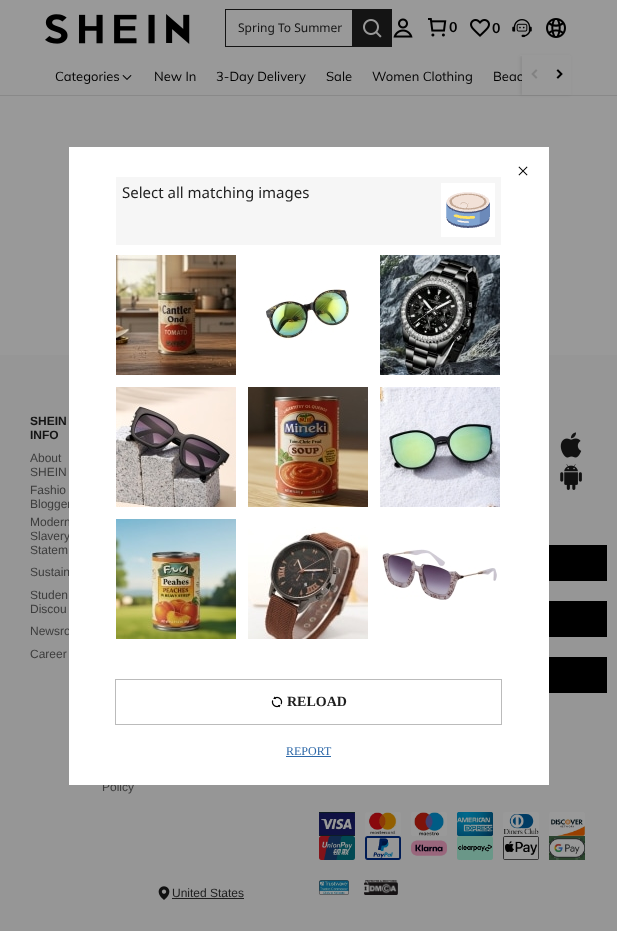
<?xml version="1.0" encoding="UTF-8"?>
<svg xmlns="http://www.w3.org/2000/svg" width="617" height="931">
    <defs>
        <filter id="blur1" x="-50%" y="-200%" width="200%" height="500%"><feGaussianBlur stdDeviation="1.5"/></filter>
        <filter id="blur2" x="-50%" y="-200%" width="200%" height="500%"><feGaussianBlur stdDeviation="0.5"/></filter>
    </defs>
    <rect width="100%" height="100%" fill="#999999"/>
    <rect x="0" y="95" width="617" height="1" fill="#898989"/>
    <rect x="520" y="56" width="50" height="39" fill="#000000" fill-opacity="0.08" filter="url(#blur1)"/>
    <rect x="520" y="55" width="50" height="1" fill="#999999"/>
    <image x="45" y="14" width="145" height="30" href="img_01.png"/>
    <rect x="225" y="9" width="127" height="1" fill="#141414"/>
    <rect x="225" y="46" width="127" height="1" fill="#141414"/>
    <rect x="225" y="9" width="1" height="38" fill="#141414"/>
    <text x="238" y="32" font-family="Noto Sans" font-size="12" fill="#141414">Spring To Summer</text>
    <rect x="352" y="9" width="40" height="38" fill="#141414"/>
    <image x="363" y="19" width="19" height="19" href="img_02.png"/>
    <image x="393" y="18" width="20" height="20" href="img_03.png"/>
    <image x="428" y="18" width="19" height="19" href="img_04.png"/>
    <text x="449" y="32" font-family="Muli" font-size="14" font-weight="700" fill="#000000">0</text>
    <image x="470" y="19" width="20" height="18" href="img_05.png"/>
    <text x="492" y="33" font-family="Muli" font-size="14" font-weight="700" fill="#000000">0</text>
    <image x="512" y="19" width="20" height="19" href="img_06.png"/>
    <image x="546" y="18" width="20" height="20" href="img_07.png"/>
    <text x="55" y="81" font-family="Muli" font-size="13" fill="#000000">Categories</text>
    <image x="122" y="75" width="10" height="5" href="img_08.png"/>
    <text x="154" y="81" font-family="Muli" font-size="13" fill="#000000">New In</text>
    <text x="216" y="81" font-family="Muli" font-size="13" fill="#000000">3-Day Delivery</text>
    <text x="326" y="81" font-family="Muli" font-size="13" fill="#000000">Sale</text>
    <text x="372" y="81" font-family="Muli" font-size="13" fill="#000000">Women Clothing</text>
    <text x="493" y="81" font-family="Muli" font-size="13" fill="#000000">Beac</text>
    <rect x="522" y="56" width="49" height="39" fill="#999999"/>
    <image x="531" y="69" width="7" height="10" href="img_09.png"/>
    <image x="556" y="69" width="7" height="10" href="img_10.png"/>
    <rect x="0" y="355" width="617" height="576" fill="#969696"/>
    <text font-family="Liberation Sans" font-size="12" font-weight="700" fill="#141414">
        <tspan x="30" y="425">SHEIN</tspan>
        <tspan x="30" y="439">INFO</tspan>
    </text>
    <text font-family="Liberation Sans" font-size="12" fill="#3D3D3D">
        <tspan x="30" y="462">About</tspan>
        <tspan x="30" y="476">SHEIN</tspan>
        <tspan x="30" y="494">Fashio</tspan>
        <tspan x="30" y="508">Blogger</tspan>
        <tspan x="30" y="526">Modern</tspan>
        <tspan x="30" y="540">Slavery</tspan>
        <tspan x="30" y="554">Statem</tspan>
        <tspan x="30" y="576">Sustain</tspan>
        <tspan x="30" y="599">Studen</tspan>
        <tspan x="30" y="613">Discou</tspan>
        <tspan x="30" y="635">Newsro</tspan>
        <tspan x="30" y="658">Career</tspan>
    </text>
    <text x="102" y="791" font-family="Liberation Sans" font-size="12" fill="#3D3D3D">Policy</text>
    <image x="560" y="432" width="22" height="26" href="img_11.png"/>
    <image x="560" y="464" width="22" height="26" href="img_12.png"/>
    <rect x="549" y="545" width="58" height="36" fill="#000000"/>
    <rect x="549" y="601" width="58" height="36" fill="#000000"/>
    <rect x="549" y="657" width="58" height="36" fill="#000000"/>
    <image x="319" y="812" width="36" height="24" href="img_13.png"/>
    <image x="365" y="812" width="36" height="24" href="img_14.png"/>
    <image x="411" y="812" width="36" height="24" href="img_15.png"/>
    <image x="457" y="812" width="36" height="24" href="img_16.png"/>
    <image x="503" y="812" width="36" height="24" href="img_17.png"/>
    <image x="549" y="812" width="36" height="24" href="img_18.png"/>
    <image x="319" y="836" width="36" height="24" href="img_19.png"/>
    <image x="365" y="836" width="36" height="24" href="img_20.png"/>
    <image x="411" y="840" width="36" height="16" href="img_21.png"/>
    <image x="457" y="836" width="36" height="24" href="img_22.png"/>
    <image x="503" y="836" width="36" height="24" href="img_23.png"/>
    <image x="549" y="836" width="36" height="24" href="img_24.png"/>
    <image x="158" y="886" width="12" height="14" href="img_25.png"/>
    <text x="172" y="897" font-family="Liberation Sans" font-size="12" fill="#1E1E1E">United States</text>
    <rect x="172" y="898" width="72" height="1" fill="#1E1E1E"/>
    <image x="319" y="880" width="30" height="15" href="img_26.png"/>
    <image x="364" y="880" width="34" height="15" href="img_27.png"/>
    <rect x="69" y="147" width="480" height="638" fill="#000000" fill-opacity="0.3" filter="url(#blur2)"/>
    <rect x="69" y="147" width="480" height="638" fill="#FFFFFF"/>
    <image x="518" y="166" width="10" height="10" href="img_28.png"/>
    <rect x="116" y="177" width="385" height="68" fill="#F6F6F6"/>
    <text x="122" y="198" font-family="Noto Sans" font-size="15" fill="#1E1E1E">Select all matching images</text>
    <rect x="441" y="183" width="54" height="54" fill="#FFFFFF"/>
    <image x="446" y="192" width="44" height="36" href="img_29.png"/>
    <image x="116" y="255" width="120" height="120" href="img_30.png"/>
    <image x="266" y="289" width="84" height="51" href="img_31.png"/>
    <image x="380" y="255" width="120" height="120" href="img_32.png"/>
    <image x="116" y="387" width="120" height="120" href="img_33.png"/>
    <image x="248" y="387" width="120" height="120" href="img_34.png"/>
    <image x="380" y="387" width="120" height="120" href="img_35.png"/>
    <image x="116" y="519" width="120" height="120" href="img_36.png"/>
    <image x="248" y="527" width="120" height="112" href="img_37.png"/>
    <image x="382" y="549" width="115" height="51" href="img_38.png"/>
    <rect x="115.5" y="679.5" width="386" height="45" fill="none" stroke="#BBBBBB"/>
    <image x="271" y="696" width="12" height="12" href="img_39.png"/>
    <text x="287" y="706" font-family="Liberation Serif" font-size="14" font-weight="700" fill="#1E1E1E">RELOAD</text>
    <text x="286" y="755" font-family="Liberation Serif" font-size="12" fill="#2D68A8">REPORT</text>
    <rect x="286" y="756" width="45" height="1" fill="#2D68A8"/>
</svg>
